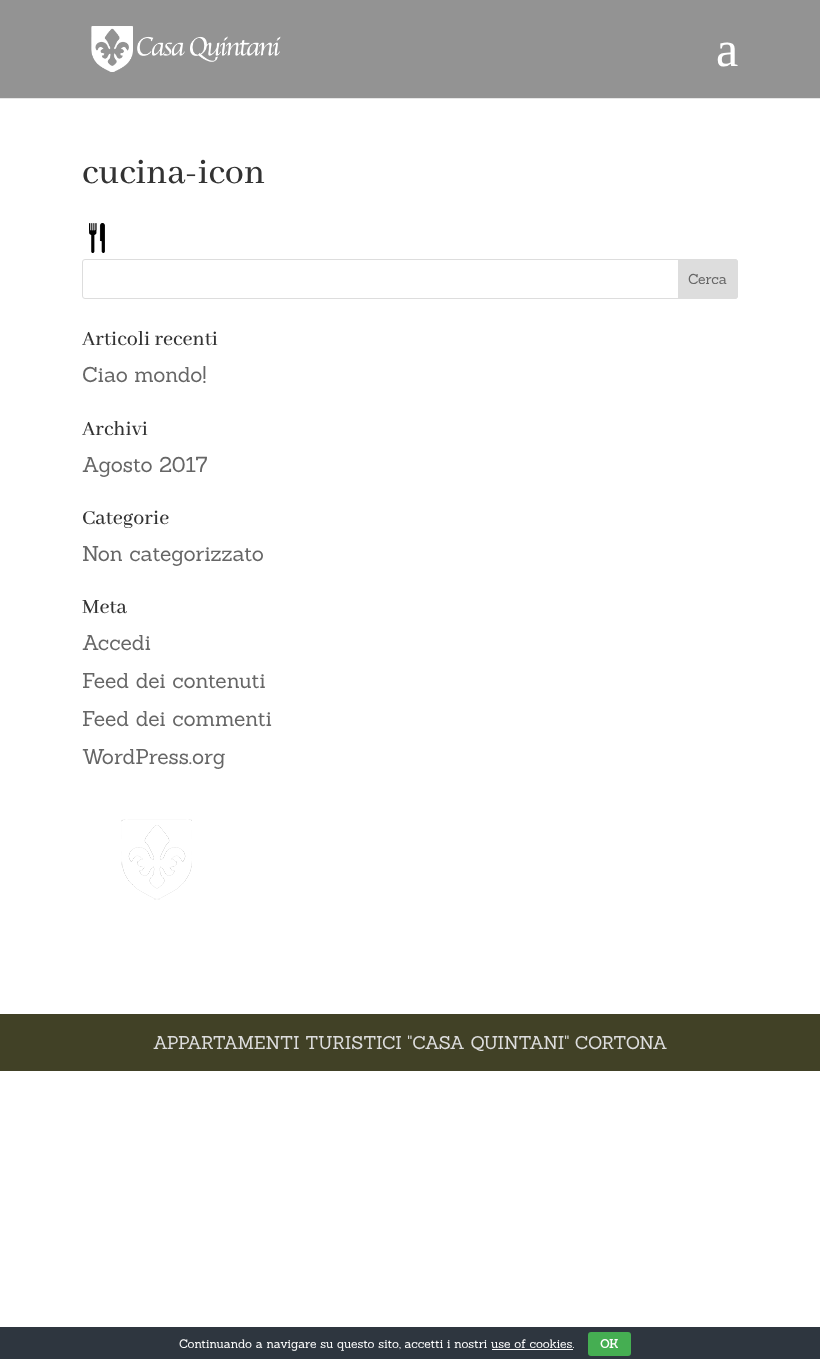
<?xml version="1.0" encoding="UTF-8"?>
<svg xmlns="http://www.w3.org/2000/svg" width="820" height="1359">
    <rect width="100%" height="100%" fill="#FFFFFF"/>
    <rect x="0" y="98" width="820" height="1" fill="#E6E6E6"/>
    <rect x="0" y="0" width="820" height="98" fill="#939393"/>
    <image x="91" y="26" width="190" height="46" href="img_01.png"/>
    <text x="716" y="66" font-family="Liberation Serif" font-size="50" fill="#FFFFFF">a</text>
    <text x="82" y="183" font-family="Abhaya Libre Medium" font-size="38" font-weight="500" fill="#333333">cucina-icon</text>
    <image x="89" y="223" width="16" height="30" href="img_02.png"/>
    <rect x="82.5" y="259.5" width="655" height="39" rx="2.5" fill="none" stroke="#DDDDDD"/>
    <path d="M 678.5 259.5 H 735 C 736.5 259.5 737.5 260.5 737.5 262 V 296 C 737.5 297.5 736.5 298.5 735 298.5 H 678.5 Z" fill="#DDDDDD" stroke="#DDDDDD"/>
    <text x="688" y="284" font-family="Sanchez" font-size="14" fill="#666666">Cerca</text>
    <text x="82" y="345" font-family="Abhaya Libre Medium" font-size="22" font-weight="500" fill="#333333">Articoli recenti</text>
    <text x="82" y="382" font-family="Sanchez" font-size="21" fill="#666666">Ciao mondo!</text>
    <text x="82" y="435" font-family="Abhaya Libre Medium" font-size="22" font-weight="500" fill="#333333">Archivi</text>
    <text x="82" y="472" font-family="Sanchez" font-size="21" fill="#666666">Agosto 2017</text>
    <text x="82" y="524" font-family="Abhaya Libre Medium" font-size="22" font-weight="500" fill="#333333">Categorie</text>
    <text x="82" y="561" font-family="Sanchez" font-size="21" fill="#666666">Non categorizzato</text>
    <text x="82" y="613" font-family="Abhaya Libre Medium" font-size="22" font-weight="500" fill="#333333">Meta</text>
    <text font-family="Sanchez" font-size="21" fill="#666666">
        <tspan x="82" y="650">Accedi</tspan>
        <tspan x="82" y="688">Feed dei contenuti</tspan>
        <tspan x="82" y="726">Feed dei commenti</tspan>
        <tspan x="82" y="764">WordPress.org</tspan>
    </text>
    <image x="121" y="819" width="71" height="81" href="img_03.png"/>
    <rect x="0" y="1014" width="820" height="57" fill="#414126"/>
    <text x="153" y="1049" font-family="Sanchez" font-size="18" fill="#DDDDDD">APPARTAMENTI TURISTICI "CASA QUINTANI" CORTONA</text>
    <rect x="0" y="1327" width="820" height="32" fill="#2E363F"/>
    <text x="179" y="1348" font-family="Sanchez" font-size="12" fill="#FFFFFF">Continuando a navigare su questo sito, accetti i nostri use of cookies.</text>
    <rect x="588" y="1332" width="43" height="24" rx="3" fill="#45AE52"/>
    <text x="600" y="1348" font-family="Sanchez" font-size="12" font-weight="700" fill="#FFFFFF">OK</text>
    <rect x="492" y="1349" width="81" height="1" fill="#FFFFFF"/>
</svg>
